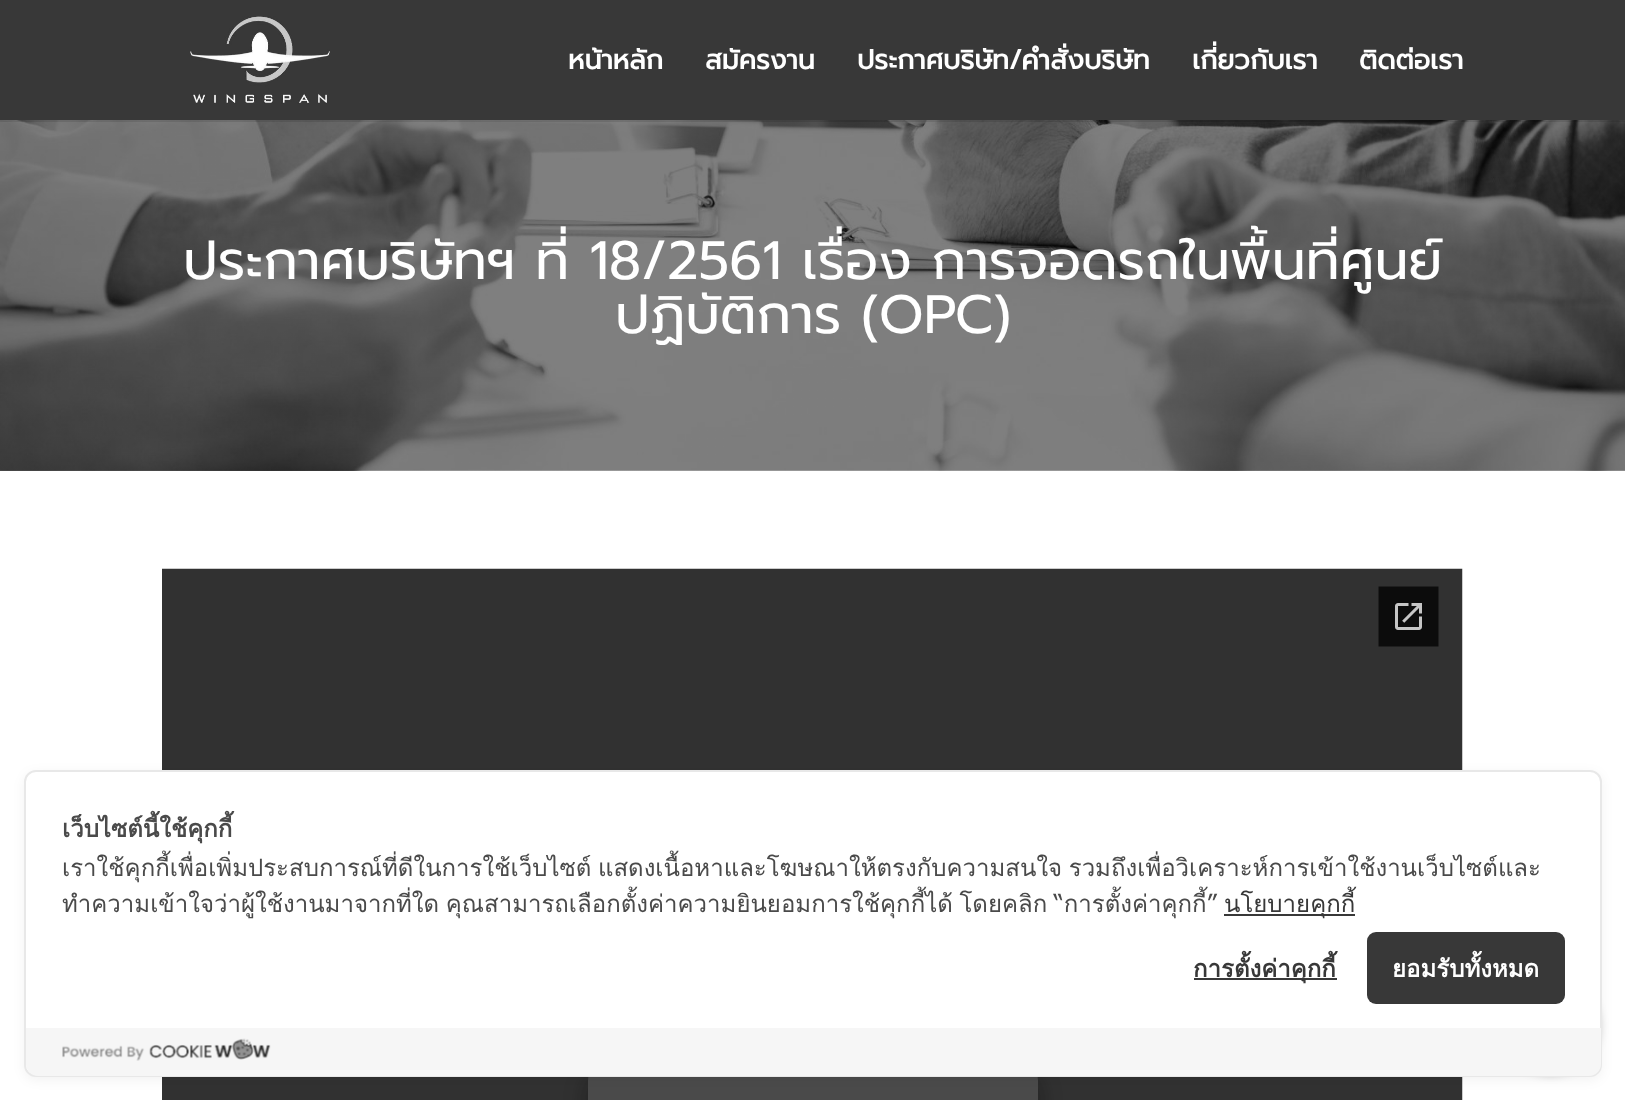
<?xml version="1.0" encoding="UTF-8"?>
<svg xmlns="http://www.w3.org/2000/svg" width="1625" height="1100">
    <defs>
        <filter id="blur1" x="-50%" y="-200%" width="200%" height="500%"><feGaussianBlur stdDeviation="6"/></filter>
    </defs>
    <rect width="100%" height="100%" fill="#FFFFFF"/>
    <image x="0" y="120" width="1625" height="351" href="img_02.png"/>
    <rect x="0" y="120" width="1625" height="2" fill="#000000" fill-opacity="0.1"/>
    <rect x="0" y="0" width="1625" height="120" fill="#383838"/>
    <image x="190" y="16" width="140" height="88" href="img_01.png"/>
    <text x="568" y="69" font-family="Prompt" font-size="27" font-weight="700" fill="#FFFFFF">หน้าหลัก</text>
    <text x="705" y="69" font-family="Prompt" font-size="27" font-weight="700" fill="#FFFFFF">สมัครงาน</text>
    <text x="857" y="69" font-family="Prompt" font-size="27" font-weight="700" fill="#FFFFFF">ประกาศบริษัท/คำสั่งบริษัท</text>
    <text x="1192" y="69" font-family="Prompt" font-size="27" font-weight="700" fill="#FFFFFF">เกี่ยวกับเรา</text>
    <text x="1359" y="69" font-family="Prompt" font-size="27" font-weight="700" fill="#FFFFFF">ติดต่อเรา</text>
    <text x="183" y="279" font-family="Prompt" font-size="54" fill="#FFFFFF">ประกาศบริษัทฯ ที่ 18/2561 เรื่อง การจอดรถในพื้นที่ศูนย์</text>
    <text x="615" y="333" font-family="Prompt" font-size="54" fill="#FFFFFF">ปฏิบัติการ (OPC)</text>
    <image x="162" y="568" width="1301" height="532" href="img_03.png"/>
    <rect x="24" y="773" width="1578" height="307" rx="12" fill="#000000" fill-opacity="0.05" filter="url(#blur1)"/>
    <rect x="1506" y="981" width="90" height="90" rx="45" fill="#000000" fill-opacity="0.5" filter="url(#blur1)"/>
    <rect x="25" y="771" width="1576" height="305" rx="11" fill="#FFFFFF" stroke="#E8E8E8" stroke-width="2"/>
    <text x="62" y="837" font-family="Loma" font-size="24" font-weight="700" fill="#4A4A4A">เว็บไซต์นี้ใช้คุกกี้</text>
    <text font-family="Loma" font-size="24" fill="#4A4A4A">
        <tspan x="62" y="876" word-spacing="-1.5">เราใช้คุกกี้เพื่อเพิ่มประสบการณ์ที่ดีในการใช้เว็บไซต์ แสดงเนื้อหาและโฆษณาให้ตรงกับความสนใจ รวมถึงเพื่อวิเคราะห์การเข้าใช้งานเว็บไซต์และ</tspan>
        <tspan x="62" y="912" word-spacing="-1.5">ทำความเข้าใจว่าผู้ใช้งานมาจากที่ใด คุณสามารถเลือกตั้งค่าความยินยอมการใช้คุกกี้ได้ โดยคลิก “การตั้งค่าคุกกี้”</tspan>
    </text>
    <rect x="1224" y="914" width="131" height="2" fill="#383838"/>
    <text x="1224" y="912" font-family="Loma" font-size="24" fill="#383838">นโยบายคุกกี้</text>
    <rect x="1194" y="978" width="143" height="2" fill="#383838"/>
    <text x="1193" y="977" font-family="Loma" font-size="24" font-weight="700" fill="#383838">การตั้งค่าคุกกี้</text>
    <rect x="1367" y="932" width="198" height="72" rx="9" fill="#383838"/>
    <text x="1392" y="977" font-family="Loma" font-size="24" font-weight="700" fill="#FFFFFF">ยอมรับทั้งหมด</text>
    <path d="M 26 1028 H 1601 V 1064 C 1601 1070.5 1595.5 1076 1589 1076 H 38 C 31.5 1076 26 1070.5 26 1064 Z" fill="#F6F6F6"/>
    <image x="62" y="1038" width="209" height="23" href="img_04.png"/>
</svg>
